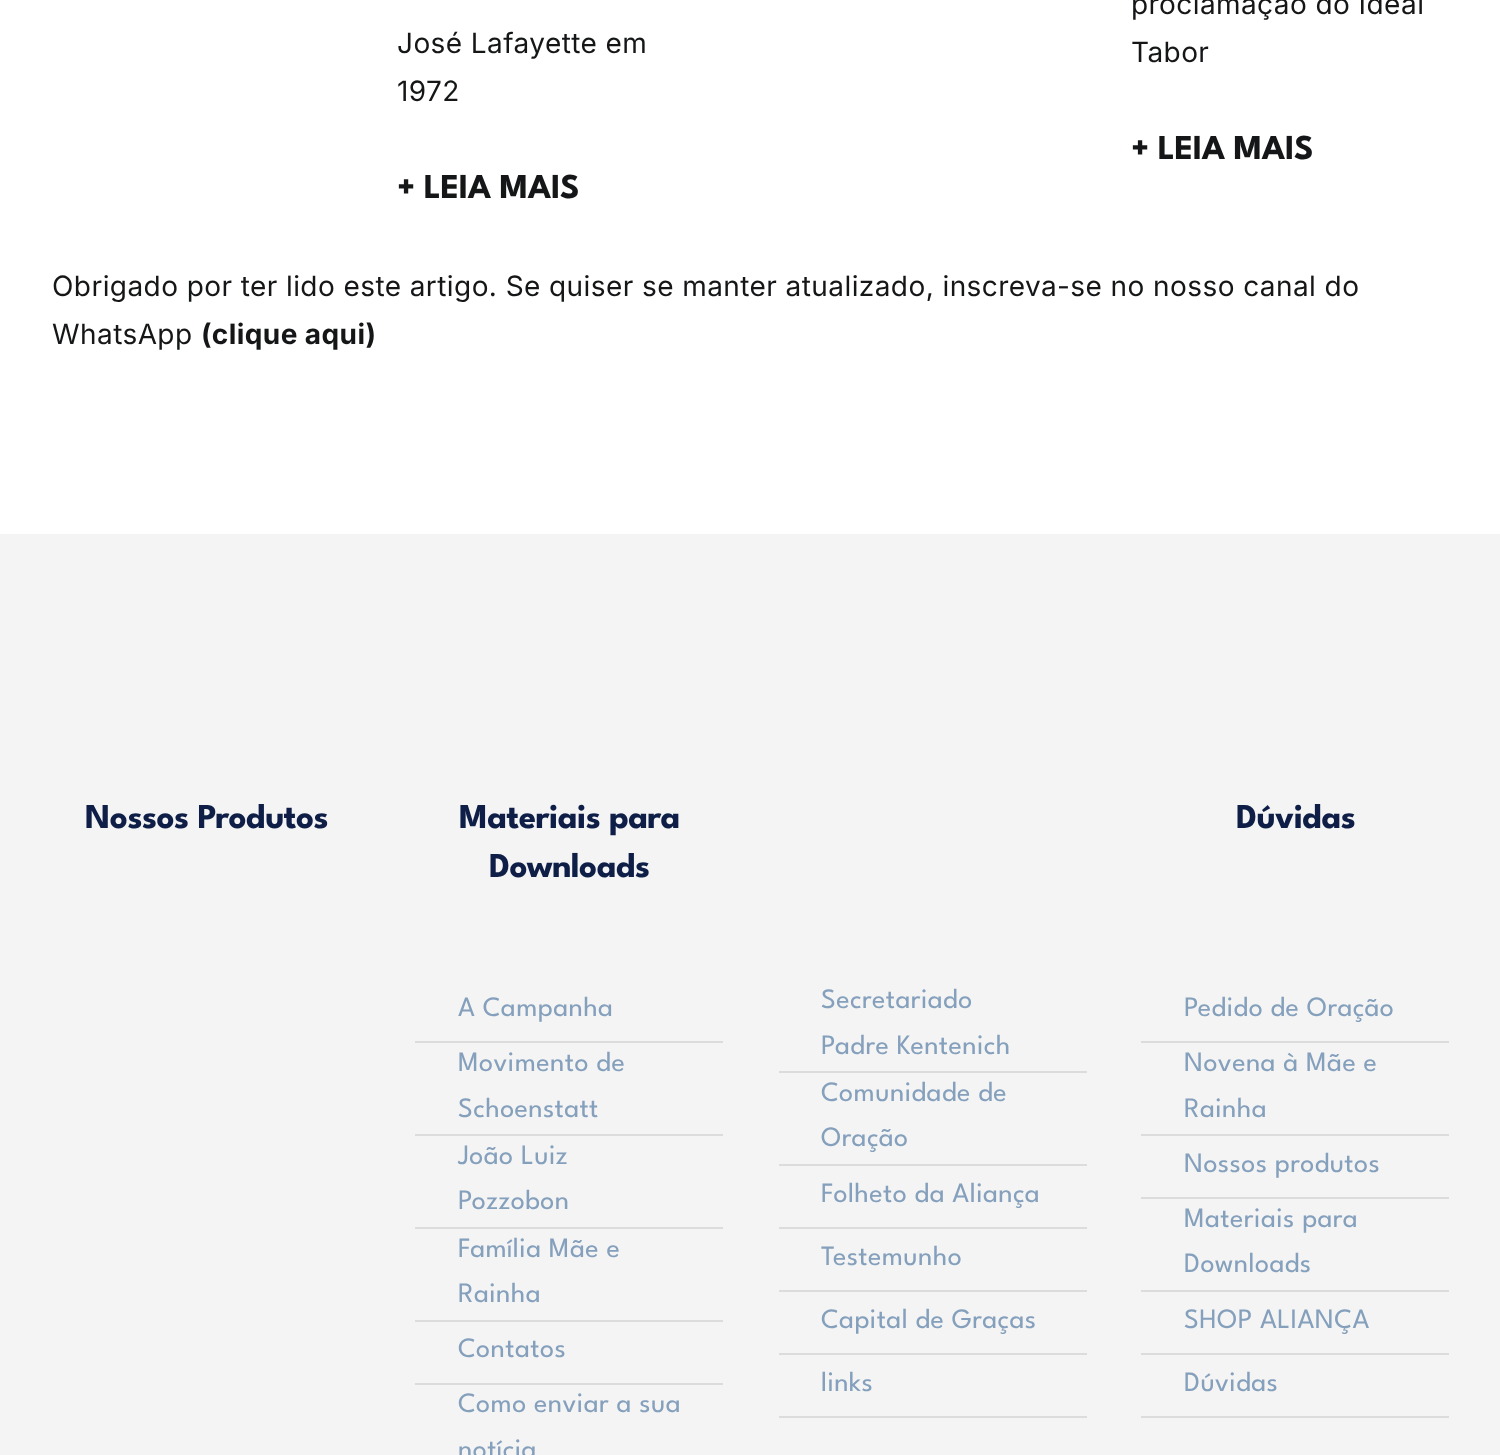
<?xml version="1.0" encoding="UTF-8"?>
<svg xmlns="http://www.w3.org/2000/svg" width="1500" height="1455">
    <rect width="100%" height="100%" fill="#FFFFFF"/>
    <text font-family="Inter" font-size="28" letter-spacing="0.42" fill="#141617">
        <tspan x="397" y="53">José Lafayette em</tspan>
        <tspan x="397" y="101">1972</tspan>
    </text>
    <text x="397" y="198" font-family="League Spartan" font-size="35" font-weight="700" letter-spacing="-0.5" fill="#141617">+ LEIA MAIS</text>
    <text font-family="Inter" font-size="28" letter-spacing="0.42" fill="#141617">
        <tspan x="1131" y="14">proclamação do Ideal</tspan>
        <tspan x="1131" y="62">Tabor</tspan>
    </text>
    <text x="1131" y="159" font-family="League Spartan" font-size="35" font-weight="700" letter-spacing="-0.5" fill="#141617">+ LEIA MAIS</text>
    <text font-family="Inter" font-size="28" letter-spacing="0.42" fill="#141617">
        <tspan x="52" y="296">Obrigado por ter lido este artigo. Se quiser se manter atualizado, inscreva-se no nosso canal do</tspan>
        <tspan x="52" y="344">WhatsApp</tspan>
    </text>
    <text x="201" y="344" font-family="Inter" font-size="28" font-weight="700" letter-spacing="0.42" fill="#141617">(clique aqui)</text>
    <rect x="0" y="534" width="1500" height="921" fill="#F4F4F4"/>
    <text x="85" y="828" font-family="League Spartan" font-size="35" font-weight="700" letter-spacing="-0.5" fill="#0E1E47">Nossos Produtos</text>
    <text x="459" y="828" font-family="League Spartan" font-size="35" font-weight="700" letter-spacing="-0.5" fill="#0E1E47">Materiais para</text>
    <text x="489" y="877" font-family="League Spartan" font-size="35" font-weight="700" letter-spacing="-0.5" fill="#0E1E47">Downloads</text>
    <text x="1236" y="828" font-family="League Spartan" font-size="35" font-weight="700" letter-spacing="-0.5" fill="#0E1E47">Dúvidas</text>
    <rect x="415" y="1041" width="308" height="2" fill="#DCDCDC"/>
    <text x="458" y="1016" font-family="League Spartan" font-size="28" letter-spacing="0.42" fill="#85A0BC">A Campanha</text>
    <rect x="415" y="1134" width="308" height="2" fill="#DCDCDC"/>
    <text font-family="League Spartan" font-size="28" letter-spacing="0.42" fill="#85A0BC">
        <tspan x="458" y="1071">Movimento de</tspan>
        <tspan x="458" y="1117">Schoenstatt</tspan>
    </text>
    <rect x="415" y="1227" width="308" height="2" fill="#DCDCDC"/>
    <text font-family="League Spartan" font-size="28" letter-spacing="0.42" fill="#85A0BC">
        <tspan x="458" y="1164">João Luiz</tspan>
        <tspan x="458" y="1209">Pozzobon</tspan>
    </text>
    <rect x="415" y="1320" width="308" height="2" fill="#DCDCDC"/>
    <text font-family="League Spartan" font-size="28" letter-spacing="0.42" fill="#85A0BC">
        <tspan x="458" y="1257">Família Mãe e</tspan>
        <tspan x="458" y="1302">Rainha</tspan>
    </text>
    <rect x="415" y="1383" width="308" height="2" fill="#DCDCDC"/>
    <text font-family="League Spartan" font-size="28" letter-spacing="0.42" fill="#85A0BC">
        <tspan x="458" y="1357">Contatos</tspan>
        <tspan x="458" y="1412">Como enviar a sua</tspan>
        <tspan x="458" y="1458">notícia</tspan>
    </text>
    <rect x="779" y="1071" width="308" height="2" fill="#DCDCDC"/>
    <text font-family="League Spartan" font-size="28" letter-spacing="0.42" fill="#85A0BC">
        <tspan x="821" y="1008">Secretariado</tspan>
        <tspan x="821" y="1054">Padre Kentenich</tspan>
    </text>
    <rect x="779" y="1164" width="308" height="2" fill="#DCDCDC"/>
    <text font-family="League Spartan" font-size="28" letter-spacing="0.42" fill="#85A0BC">
        <tspan x="821" y="1101">Comunidade de</tspan>
        <tspan x="821" y="1146">Oração</tspan>
    </text>
    <rect x="779" y="1227" width="308" height="2" fill="#DCDCDC"/>
    <text x="821" y="1202" font-family="League Spartan" font-size="28" letter-spacing="0.42" fill="#85A0BC">Folheto da Aliança</text>
    <rect x="779" y="1290" width="308" height="2" fill="#DCDCDC"/>
    <text x="821" y="1265" font-family="League Spartan" font-size="28" letter-spacing="0.42" fill="#85A0BC">Testemunho</text>
    <rect x="779" y="1353" width="308" height="2" fill="#DCDCDC"/>
    <text x="821" y="1328" font-family="League Spartan" font-size="28" letter-spacing="0.42" fill="#85A0BC">Capital de Graças</text>
    <rect x="779" y="1416" width="308" height="2" fill="#DCDCDC"/>
    <text x="821" y="1391" font-family="League Spartan" font-size="28" letter-spacing="0.42" fill="#85A0BC">links</text>
    <rect x="1141" y="1041" width="308" height="2" fill="#DCDCDC"/>
    <text x="1184" y="1016" font-family="League Spartan" font-size="28" letter-spacing="0.42" fill="#85A0BC">Pedido de Oração</text>
    <rect x="1141" y="1134" width="308" height="2" fill="#DCDCDC"/>
    <text font-family="League Spartan" font-size="28" letter-spacing="0.42" fill="#85A0BC">
        <tspan x="1184" y="1071">Novena à Mãe e</tspan>
        <tspan x="1184" y="1117">Rainha</tspan>
    </text>
    <rect x="1141" y="1197" width="308" height="2" fill="#DCDCDC"/>
    <text x="1184" y="1172" font-family="League Spartan" font-size="28" letter-spacing="0.42" fill="#85A0BC">Nossos produtos</text>
    <rect x="1141" y="1290" width="308" height="2" fill="#DCDCDC"/>
    <text font-family="League Spartan" font-size="28" letter-spacing="0.42" fill="#85A0BC">
        <tspan x="1184" y="1227">Materiais para</tspan>
        <tspan x="1184" y="1272">Downloads</tspan>
    </text>
    <rect x="1141" y="1353" width="308" height="2" fill="#DCDCDC"/>
    <text x="1184" y="1328" font-family="League Spartan" font-size="28" letter-spacing="0.42" fill="#85A0BC">SHOP ALIANÇA</text>
    <rect x="1141" y="1416" width="308" height="2" fill="#DCDCDC"/>
    <text x="1184" y="1391" font-family="League Spartan" font-size="28" letter-spacing="0.42" fill="#85A0BC">Dúvidas</text>
</svg>
